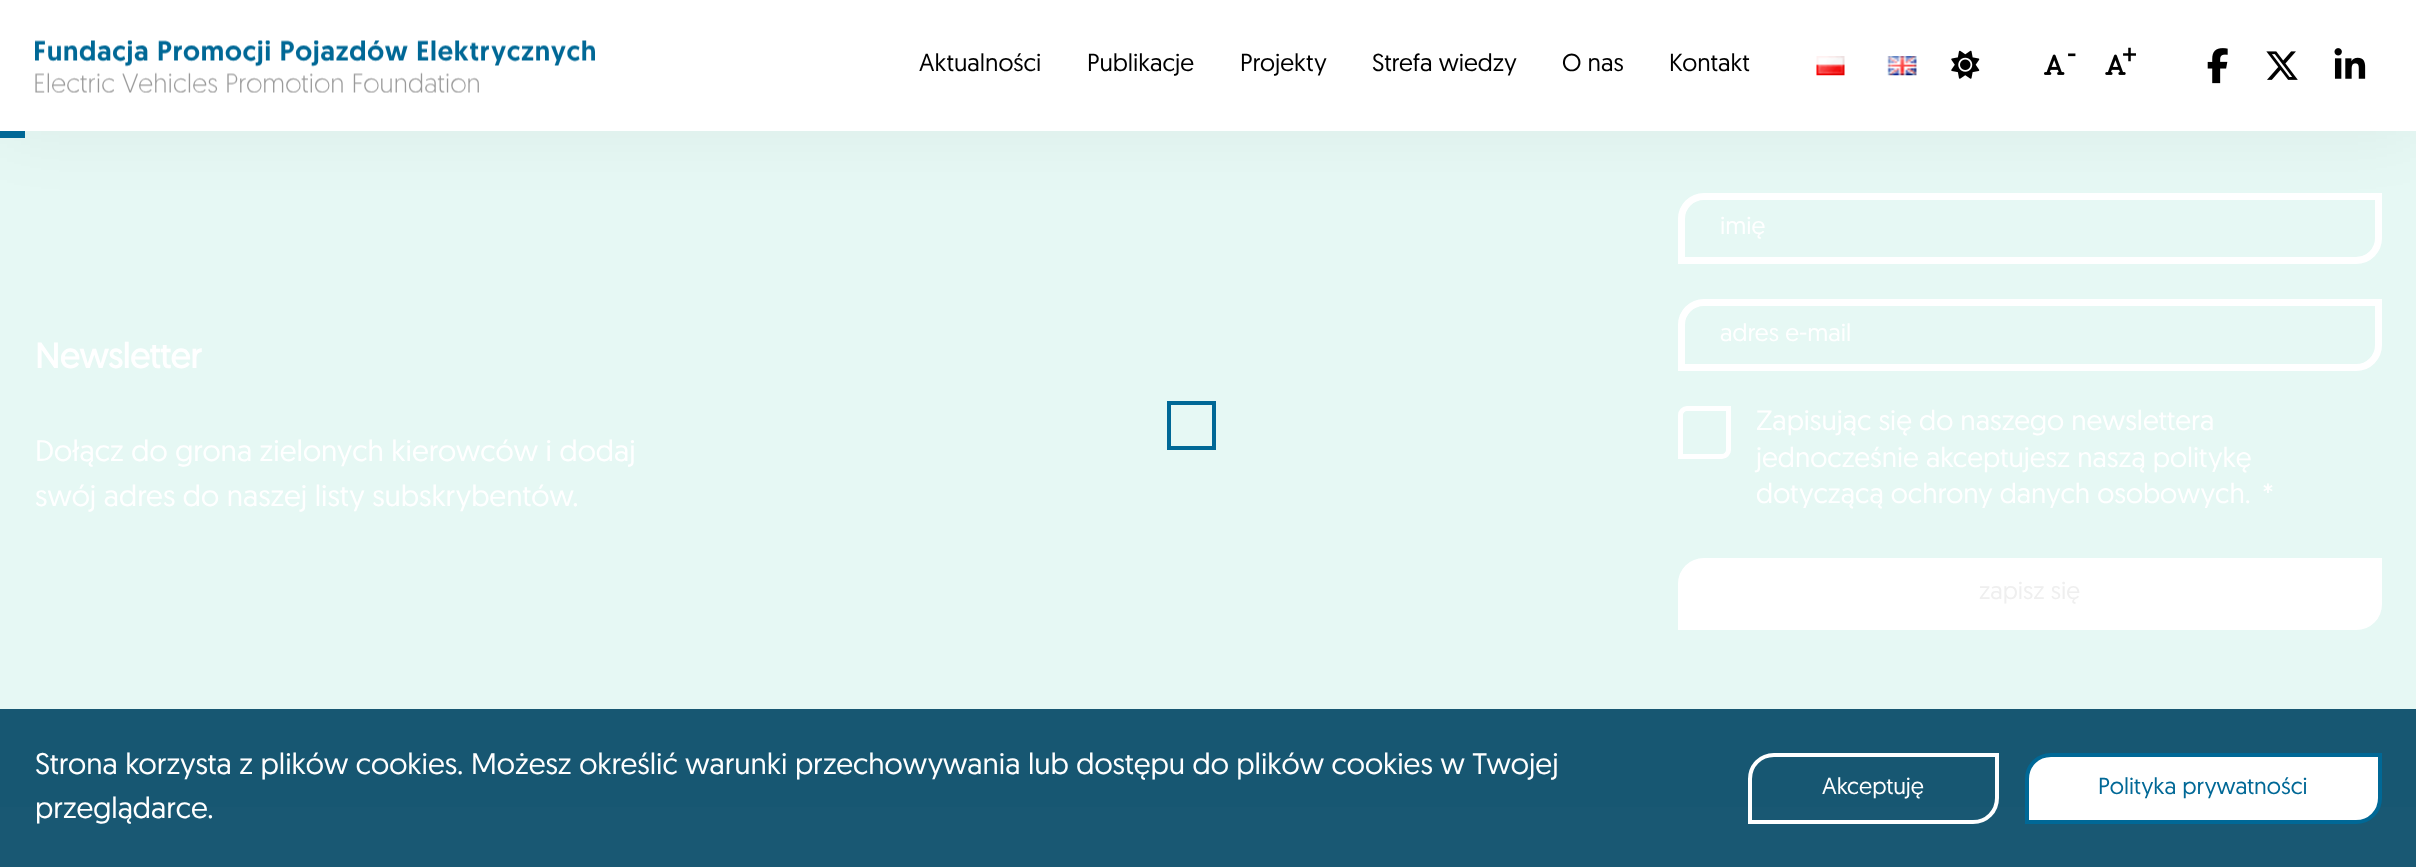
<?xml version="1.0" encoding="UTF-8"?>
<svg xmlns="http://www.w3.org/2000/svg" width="2416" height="867">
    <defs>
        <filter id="blur1" x="-50%" y="-200%" width="200%" height="500%"><feGaussianBlur stdDeviation="35"/></filter>
    </defs>
    <rect width="100%" height="100%" fill="#E6F8F4"/>
    <path d="M 1704 196.5 H 2378.5 V 238 C 2378.5 250.5 2368.5 260.5 2356 260.5 H 1681.5 V 219 C 1681.5 206.5 1691.5 196.5 1704 196.5 Z" fill="none" stroke="#FFFFFF" stroke-width="7"/>
    <rect x="0" y="0" width="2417" height="131" fill="#000000" fill-opacity="0.05" filter="url(#blur1)"/>
    <rect x="0" y="0" width="2416" height="131" fill="#FFFFFF"/>
    <image x="35" y="40" width="560" height="53" href="img_01.png"/>
    <text x="919" y="71" font-family="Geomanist" font-size="24.5" fill="#000000">Aktualności</text>
    <text x="1087" y="71" font-family="Geomanist" font-size="24.5" fill="#000000">Publikacje</text>
    <text x="1240" y="71" font-family="Geomanist" font-size="24.5" fill="#000000">Projekty</text>
    <text x="1372" y="71" font-family="Geomanist" font-size="24.5" fill="#000000">Strefa wiedzy</text>
    <text x="1562" y="71" font-family="Geomanist" font-size="24.5" fill="#000000">O nas</text>
    <text x="1669" y="71" font-family="Geomanist" font-size="24.5" fill="#000000">Kontakt</text>
    <image x="1816" y="56" width="29" height="20" href="img_02.png"/>
    <image x="1887" y="56" width="30" height="20" href="img_03.png"/>
    <image x="1951" y="50" width="29" height="29" href="img_04.png"/>
    <image x="2044" y="54" width="21" height="21" href="img_05.png"/>
    <text x="2067" y="63" font-family="Geomanist" font-size="26" font-weight="700" fill="#000000">-</text>
    <image x="2105" y="54" width="21" height="21" href="img_06.png"/>
    <text x="2122" y="63" font-family="Geomanist" font-size="26" font-weight="700" fill="#000000">+</text>
    <image x="2207" y="48" width="21" height="36" href="img_07.png"/>
    <image x="2266" y="51" width="32" height="29" href="img_08.png"/>
    <image x="2334" y="48" width="32" height="31" href="img_09.png"/>
    <rect x="0" y="131" width="25" height="7" fill="#006896"/>
    <rect x="1169" y="403" width="45" height="45" fill="none" stroke="#006896" stroke-width="4"/>
    <rect x="0" y="709" width="2416" height="98" fill="#175772"/>
    <text x="35" y="368" font-family="Geomanist" font-size="35" font-weight="700" fill="#FFFFFF">Newsletter</text>
    <text font-family="Geomanist" font-size="29.75" fill="#FFFFFF">
        <tspan x="35" y="461">Dołącz do grona zielonych kierowców i dodaj</tspan>
        <tspan x="35" y="506">swój adres do naszej listy subskrybentów.</tspan>
    </text>
    <text x="1720" y="234" font-family="Geomanist" font-size="24.5" fill="#FFFFFF">imię</text>
    <path d="M 1704 302.5 H 2378.5 V 345 C 2378.5 357.5 2368.5 367.5 2356 367.5 H 1681.5 V 325 C 1681.5 312.5 1691.5 302.5 1704 302.5 Z" fill="none" stroke="#FFFFFF" stroke-width="7"/>
    <text x="1720" y="341" font-family="Geomanist" font-size="24.5" fill="#FFFFFF">adres e-mail</text>
    <path d="M 1687 408.5 H 1728.5 V 450 C 1728.5 453.5 1725.5 456.5 1722 456.5 H 1680.5 V 415 C 1680.5 411.5 1683.5 408.5 1687 408.5 Z" fill="none" stroke="#FFFFFF" stroke-width="5"/>
    <text font-family="Geomanist" font-size="28" fill="#FFFFFF">
        <tspan x="1756" y="430">Zapisując się do naszego newslettera</tspan>
        <tspan x="1756" y="467">jednocześnie akceptujesz naszą politykę</tspan>
        <tspan x="1756" y="503">dotyczącą ochrony danych osobowych.</tspan>
    </text>
    <text x="2262" y="503" font-family="Geomanist" font-size="28" fill="#FFFFFF">*</text>
    <path d="M 1704 560 H 2380 V 604 C 2380 617.5 2369.5 628 2356 628 H 1680 V 584 C 1680 570.5 1690.5 560 1704 560 Z" fill="#FFFFFF" stroke="#FFFFFF" stroke-width="4"/>
    <text x="1979" y="599" font-family="Geomanist" font-size="24.5" fill="#EFEFEF">zapisz się</text>
    <rect x="0" y="807" width="2416" height="60" fill="#195873"/>
    <text font-family="Geomanist" font-size="29.75" fill="#FFFFFF">
        <tspan x="35" y="774">Strona korzysta z plików cookies. Możesz określić warunki przechowywania lub dostępu do plików cookies w Twojej</tspan>
        <tspan x="35" y="818">przeglądarce.</tspan>
    </text>
    <path d="M 1774 755 H 1997 V 798 C 1997 811.5 1986.5 822 1973 822 H 1750 V 779 C 1750 765.5 1760.5 755 1774 755 Z" fill="none" stroke="#FFFFFF" stroke-width="4"/>
    <text x="1822" y="794" font-family="Geomanist" font-size="23.25" fill="#FFFFFF">Akceptuję</text>
    <path d="M 2051 755 H 2380 V 798 C 2380 811.5 2369.5 822 2356 822 H 2027 V 779 C 2027 765.5 2037.5 755 2051 755 Z" fill="#FFFFFF" stroke="#006896" stroke-width="4"/>
    <text x="2098" y="794" font-family="Geomanist" font-size="23.25" fill="#006896">Polityka prywatności</text>
</svg>
